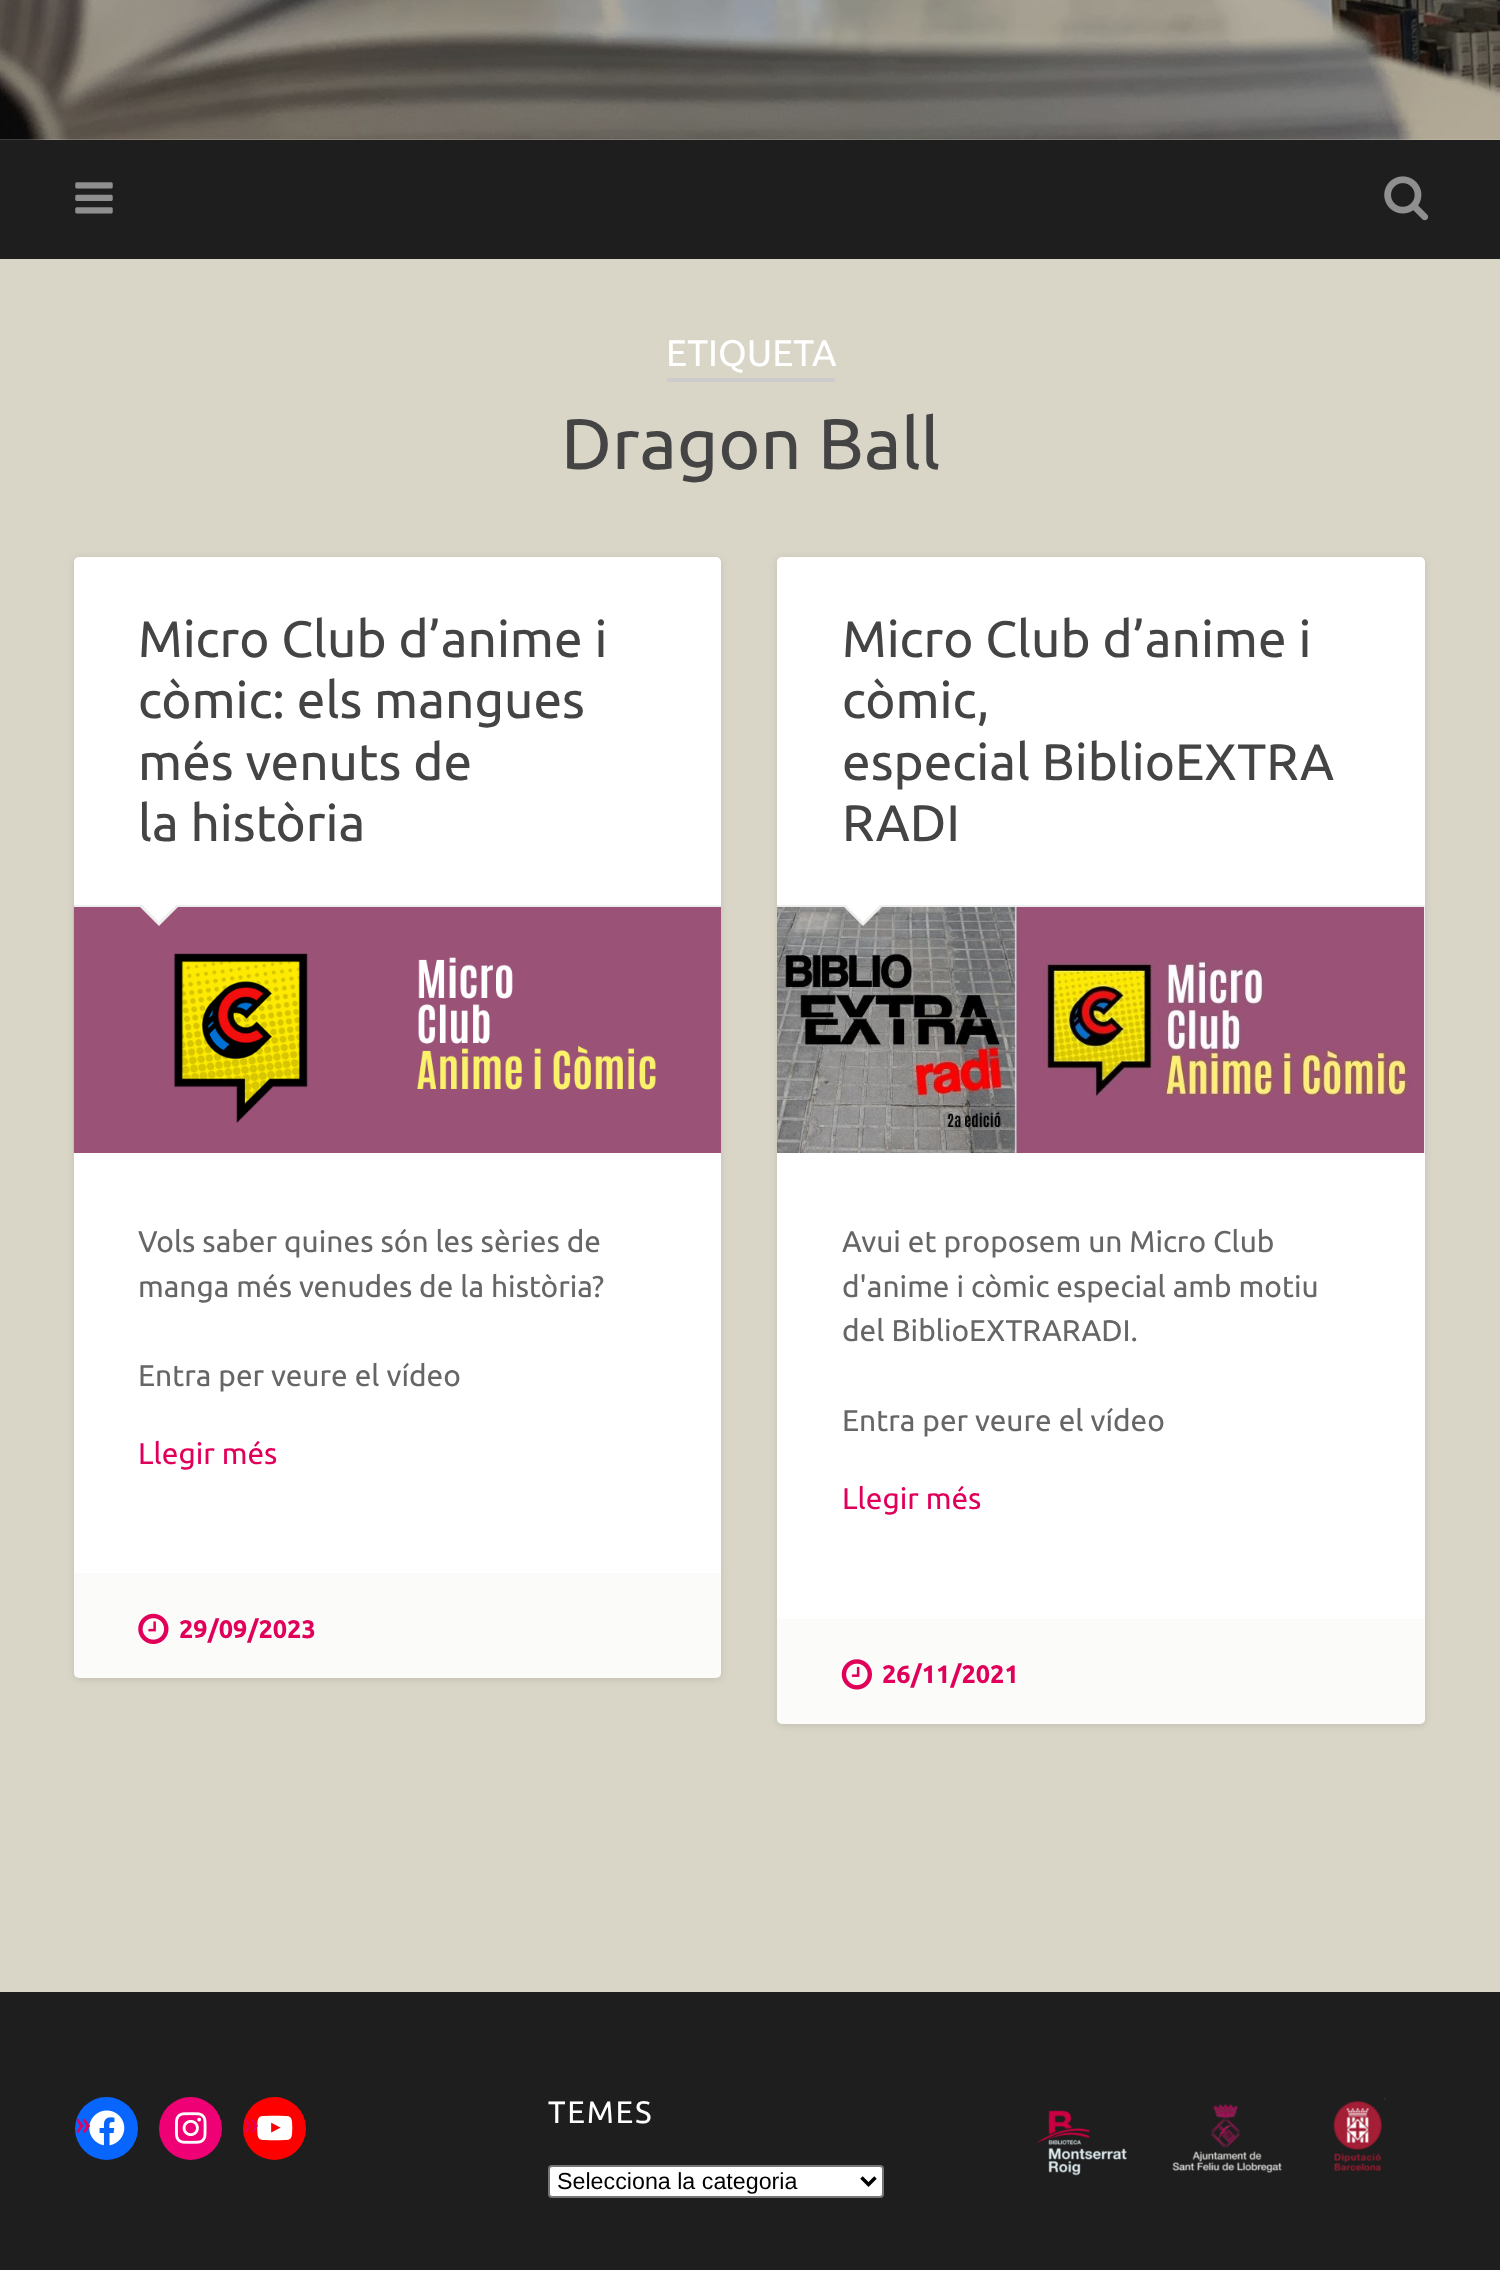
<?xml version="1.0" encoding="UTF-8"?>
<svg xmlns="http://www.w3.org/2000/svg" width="1500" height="2270">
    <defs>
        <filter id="blur1" x="-50%" y="-200%" width="200%" height="500%"><feGaussianBlur stdDeviation="3.5"/></filter>
    </defs>
    <rect width="100%" height="100%" fill="#D9D6C8"/>
    <image x="0" y="0" width="1500" height="140" href="img_01.png"/>
    <rect x="0" y="140" width="1500" height="119" fill="#1E1E1E"/>
    <image x="75" y="182" width="38" height="32" href="img_02.png"/>
    <image x="1384" y="176" width="45" height="45" href="img_03.png"/>
    <rect x="667" y="378" width="168" height="4" fill="#CCCCCC"/>
    <text x="666" y="366" font-family="Ubuntu" font-size="37" fill="#FFFFFF">ETIQUETA</text>
    <text x="561" y="469" font-family="Ubuntu" font-size="71.5" fill="#444444">Dragon Ball</text>
    <rect x="74" y="558" width="647" height="1122" rx="5" fill="#000000" fill-opacity="0.1" filter="url(#blur1)"/>
    <rect x="74" y="557" width="647" height="1121" rx="5" fill="#FFFFFF"/>
    <image x="73" y="906" width="648" height="247" href="img_04.png"/>
    <rect x="74" y="905" width="647" height="2" fill="#EEEEEE"/>
    <text font-family="Ubuntu" font-size="51.25" fill="#444444">
        <tspan x="138" y="657">Micro Club d’anime i</tspan>
        <tspan x="138" y="718">còmic: els mangues</tspan>
        <tspan x="138" y="780">més venuts de</tspan>
        <tspan x="138" y="841">la història</tspan>
    </text>
    <path d="M 138 905 H 180 L 159 926 Z" fill="#EEEEEE"/>
    <path d="M 140 903 H 178.5 L 159 922 Z" fill="#FFFFFF"/>
    <text font-family="Ubuntu" font-size="29.9" fill="#666666">
        <tspan x="138" y="1252">Vols saber quines són les sèries de</tspan>
        <tspan x="138" y="1297">manga més venudes de la història?</tspan>
    </text>
    <text x="138" y="1386" font-family="Ubuntu" font-size="29.9" fill="#666666">Entra per veure el vídeo</text>
    <text x="138" y="1464" font-family="Ubuntu" font-size="29.9" fill="#E0005A">Llegir més</text>
    <path d="M 74 1573 H 721 V 1673 C 721 1676 719 1678 716 1678 H 79 C 76 1678 74 1676 74 1673 Z" fill="#D9D6C8" fill-opacity="0.1"/>
    <image x="138" y="1613" width="31" height="31" href="img_05.png"/>
    <text x="179" y="1638" font-family="Ubuntu" font-size="25.25" font-weight="700" fill="#E0005A">29/09/2023</text>
    <rect x="777" y="558" width="648" height="1168" rx="5" fill="#000000" fill-opacity="0.1" filter="url(#blur1)"/>
    <rect x="777" y="557" width="648" height="1167" rx="5" fill="#FFFFFF"/>
    <rect x="777" y="905" width="648" height="2" fill="#EEEEEE"/>
    <text font-family="Ubuntu" font-size="51.25" fill="#444444">
        <tspan x="842" y="657">Micro Club d’anime i</tspan>
        <tspan x="842" y="718">còmic,</tspan>
        <tspan x="842" y="780">especial BiblioEXTRA</tspan>
        <tspan x="842" y="841">RADI</tspan>
    </text>
    <image x="777" y="907" width="648" height="246" href="img_06.png"/>
    <path d="M 842 905 H 884 L 863 926 Z" fill="#EEEEEE"/>
    <path d="M 843.5 903 H 882 L 863 922 Z" fill="#FFFFFF"/>
    <text font-family="Ubuntu" font-size="29.9" fill="#666666">
        <tspan x="842" y="1252">Avui et proposem un Micro Club</tspan>
        <tspan x="842" y="1297">d'anime i còmic especial amb motiu</tspan>
        <tspan x="842" y="1341">del BiblioEXTRARADI.</tspan>
    </text>
    <text x="842" y="1431" font-family="Ubuntu" font-size="29.9" fill="#666666">Entra per veure el vídeo</text>
    <text x="842" y="1509" font-family="Ubuntu" font-size="29.9" fill="#E0005A">Llegir més</text>
    <path d="M 777 1619 H 1425 V 1719 C 1425 1722 1423 1724 1420 1724 H 782 C 779 1724 777 1722 777 1719 Z" fill="#D9D6C8" fill-opacity="0.1"/>
    <image x="841" y="1659" width="31" height="31" href="img_07.png"/>
    <text x="882" y="1683" font-family="Ubuntu" font-size="25.25" font-weight="700" fill="#E0005A">26/11/2021</text>
    <rect x="0" y="1992" width="1500" height="278" fill="#1E1E1E"/>
    <circle cx="106.5" cy="2128.5" r="31.5" fill="#0866FF"/>
    <image x="89" y="2110" width="36" height="36" href="img_08.png"/>
    <text x="75" y="2135" font-family="Ubuntu" font-size="32" fill="#E0005A">»</text>
    <circle cx="190.5" cy="2128.5" r="31.5" fill="#F00075"/>
    <image x="175" y="2112" width="32" height="32" href="img_09.png"/>
    <circle cx="274.5" cy="2128.5" r="31.5" fill="#FF0000"/>
    <image x="257" y="2115" width="36" height="26" href="img_10.png"/>
    <text x="243" y="2135" font-family="Ubuntu" font-size="32" fill="#E0005A">»</text>
    <text x="548" y="2123" font-family="Ubuntu" font-size="31" letter-spacing="1.75" fill="#FFFFFF">TEMES</text>
    <rect x="549" y="2166" width="334" height="31" rx="3" fill="#FFFFFF" stroke="#767676" stroke-width="2"/>
    <path d="M 861.5 2177.5 L 868.5 2184.5 L 875.5 2177.5" fill="none" stroke="#000000" stroke-width="3.5"/>
    <text x="557" y="2189" font-family="Liberation Sans" font-size="23.25" fill="#000000">Selecciona la categoria</text>
    <image x="1036" y="2098" width="350" height="78" href="img_11.png"/>
</svg>
